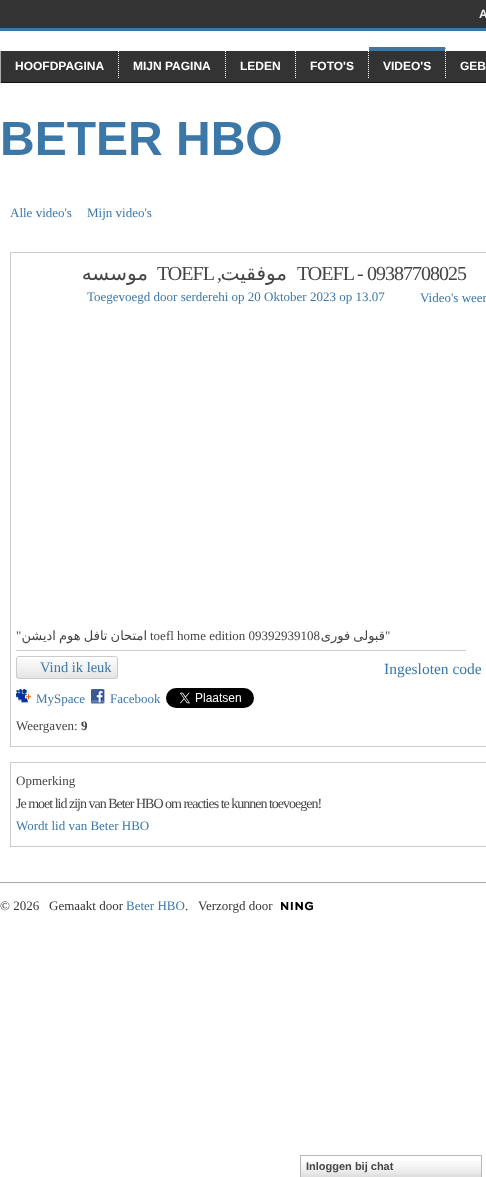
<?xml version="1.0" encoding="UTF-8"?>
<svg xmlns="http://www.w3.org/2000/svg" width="486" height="1177">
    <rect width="100%" height="100%" fill="#FFFFFF"/>
    <rect x="0" y="0" width="486" height="28" fill="#333333"/>
    <text x="479" y="18" font-family="Liberation Sans" font-size="12" font-weight="700" fill="#EEEEEE">A</text>
    <rect x="0" y="28" width="486" height="3" fill="#3C78A7"/>
    <rect x="1" y="51" width="485" height="31" fill="#333333"/>
    <rect x="0" y="82" width="486" height="1" fill="#111111"/>
    <rect x="0" y="51" width="1" height="32" fill="#AAAAAA"/>
    <path d="M 118.5 47 V 78" fill="none" stroke="#FFFFFF" stroke-dasharray="1 1"/>
    <text x="15" y="70" font-family="Liberation Sans" font-size="12" font-weight="700" fill="#FFFFFF">HOOFDPAGINA</text>
    <path d="M 225.5 47 V 78" fill="none" stroke="#FFFFFF" stroke-dasharray="1 1"/>
    <text x="133" y="70" font-family="Liberation Sans" font-size="12" font-weight="700" fill="#FFFFFF">MIJN PAGINA</text>
    <path d="M 295.5 47 V 78" fill="none" stroke="#FFFFFF" stroke-dasharray="1 1"/>
    <text x="240" y="70" font-family="Liberation Sans" font-size="12" font-weight="700" fill="#FFFFFF">LEDEN</text>
    <path d="M 368.5 47 V 78" fill="none" stroke="#FFFFFF" stroke-dasharray="1 1"/>
    <text x="310" y="70" font-family="Liberation Sans" font-size="12" font-weight="700" fill="#FFFFFF">FOTO'S</text>
    <path d="M 369 47 H 446 L 445 51 H 369 Z" fill="#3C78A7"/>
    <path d="M 445.5 47 V 78" fill="none" stroke="#FFFFFF" stroke-dasharray="1 1"/>
    <text x="383" y="70" font-family="Liberation Sans" font-size="12" font-weight="700" fill="#FFFFFF">VIDEO'S</text>
    <text x="460" y="70" font-family="Liberation Sans" font-size="12" font-weight="700" fill="#FFFFFF">GEB</text>
    <text x="0" y="155" font-family="Liberation Sans" font-size="48" font-weight="700" fill="#3C78A7">BETER HBO</text>
    <text x="10" y="217" font-family="Liberation Serif" font-size="13" fill="#3C78A7">Alle video's</text>
    <text x="87" y="217" font-family="Liberation Serif" font-size="13" fill="#3C78A7">Mijn video's</text>
    <rect x="10.5" y="252.5" width="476" height="494" fill="none" stroke="#CCCCCC"/>
    <text x="148" y="280" font-family="DejaVu Sans" font-size="20" letter-spacing="-1" direction="rtl" fill="#454545">موسسه</text>
    <text x="157" y="280" font-family="Liberation Serif" font-size="20" letter-spacing="-1" fill="#454545">TOEFL ,</text>
    <text x="287" y="280" font-family="DejaVu Sans" font-size="20" letter-spacing="-1" direction="rtl" fill="#454545">موفقیت</text>
    <text x="297" y="280" font-family="Liberation Serif" font-size="20" letter-spacing="-1" fill="#454545">TOEFL -</text>
    <text x="367" y="280" font-family="Liberation Serif" font-size="20" letter-spacing="-1" fill="#454545">09387708025</text>
    <text x="87" y="301" font-family="Liberation Serif" font-size="13" fill="#3C78A7">Toegevoegd door serderehi op 20 Oktober 2023 op 13.07</text>
    <text x="420" y="302" font-family="Liberation Serif" font-size="13" fill="#3C78A7">Video's weer</text>
    <rect x="16" y="650" width="450" height="1" fill="#CCCCCC"/>
    <text x="16" y="640" font-family="Liberation Serif" font-size="13" fill="#454545">"</text>
    <text x="147" y="640" word-spacing="-1" font-family="DejaVu Sans" font-size="13" direction="rtl" fill="#454545">امتحان تافل هوم ادیشن</text>
    <text x="150" y="640" font-family="Liberation Serif" font-size="13" fill="#454545">toefl home edition 09392939108</text>
    <text x="385" y="640" word-spacing="-1" font-family="DejaVu Sans" font-size="13" direction="rtl" fill="#454545">قبولی فوری</text>
    <text x="385" y="640" font-family="Liberation Serif" font-size="13" fill="#454545">"</text>
    <image x="16" y="659" width="102" height="20" href="img_01.png"/>
    <rect x="16.5" y="656.5" width="101" height="22" rx="2.5" fill="none" stroke="#CBCBCB"/>
    <text x="40" y="672" font-family="Liberation Serif" font-size="14.5" fill="#3C78A7">Vind ik leuk</text>
    <image x="16" y="689" width="15" height="14" href="img_02.png"/>
    <text x="36" y="703" font-family="Liberation Serif" font-size="13" fill="#3C78A7">MySpace</text>
    <image x="91" y="689" width="14" height="15" href="img_03.png"/>
    <text x="110" y="703" font-family="Liberation Serif" font-size="13" fill="#3C78A7">Facebook</text>
    <image x="166" y="688" width="88" height="20" href="img_04.png"/>
    <text x="16" y="730" font-family="Liberation Serif" font-size="13" fill="#454545">Weergaven:</text>
    <text x="81" y="730" font-family="Liberation Serif" font-size="13" font-weight="700" fill="#454545">9</text>
    <text x="384" y="674" font-family="Liberation Serif" font-size="15.5" fill="#3C78A7">Ingesloten code</text>
    <rect x="10.5" y="762.5" width="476" height="84" fill="none" stroke="#CCCCCC"/>
    <text x="16" y="785" font-family="Liberation Serif" font-size="13" fill="#454545">Opmerking</text>
    <text x="16" y="808" font-family="Liberation Serif" font-size="14" letter-spacing="-1" fill="#454545">Je moet lid zijn van Beter HBO om reacties te kunnen toevoegen!</text>
    <text x="16" y="830" font-family="Liberation Serif" font-size="13" fill="#3C78A7">Wordt lid van Beter HBO</text>
    <rect x="0" y="882" width="486" height="1" fill="#AAAAAA"/>
    <text x="0" y="910" font-family="Liberation Serif" font-size="13" fill="#333333">© 2026</text>
    <text x="49" y="910" font-family="Liberation Serif" font-size="13" fill="#333333">Gemaakt door</text>
    <text x="126" y="910" font-family="Liberation Serif" font-size="13" fill="#3C78A7">Beter HBO</text>
    <text x="185" y="910" font-family="Liberation Serif" font-size="13" fill="#333333">.</text>
    <text x="198" y="910" font-family="Liberation Serif" font-size="13" fill="#333333">Verzorgd door</text>
    <image x="281" y="901" width="32" height="10" href="img_05.png"/>
    <image x="301" y="1161" width="180" height="16" href="img_06.png"/>
    <rect x="300.5" y="1155.5" width="181" height="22" fill="none" stroke="#B7B7B7"/>
    <text x="306" y="1170" font-family="Liberation Sans" font-size="11" font-weight="700" fill="#454545">Inloggen bij chat</text>
</svg>
